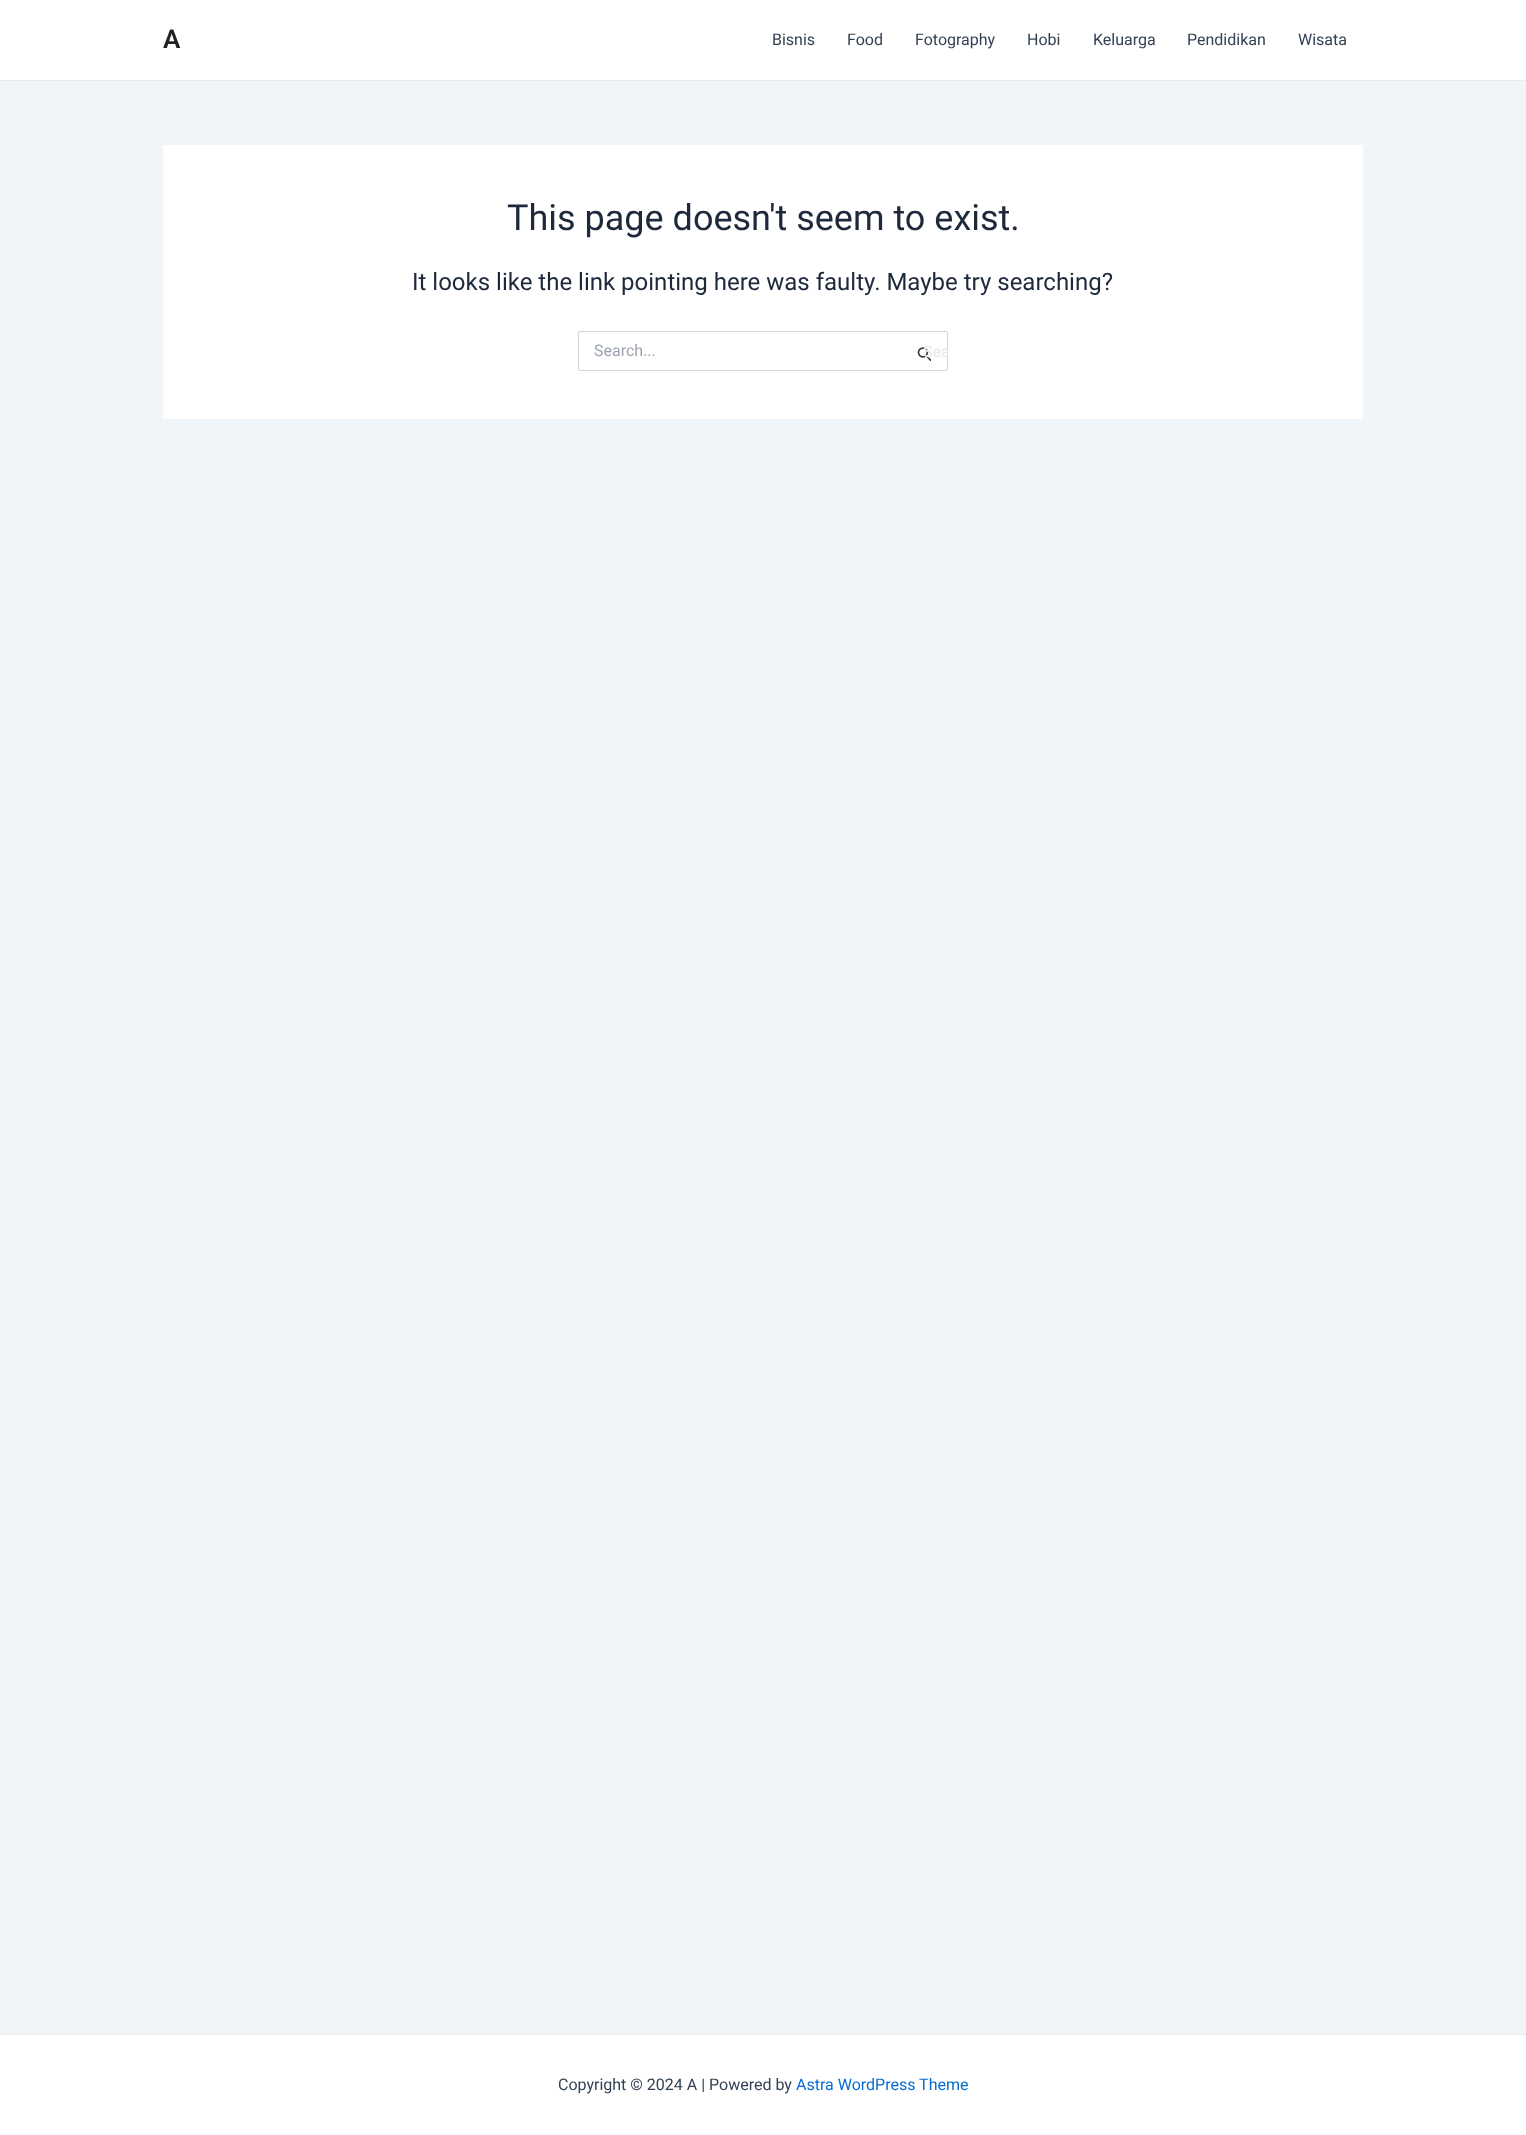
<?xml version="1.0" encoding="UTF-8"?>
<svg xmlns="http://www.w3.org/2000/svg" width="1526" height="2135">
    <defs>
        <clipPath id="clip1"><rect x="903" y="331" width="45" height="42" rx="2"/></clipPath>
    </defs>
    <rect width="100%" height="100%" fill="#F0F5FA"/>
    <rect x="0" y="0" width="1526" height="80" fill="#FFFFFF"/>
    <rect x="0" y="80" width="1526" height="1" fill="#EAEAEA"/>
    <text x="163" y="48" font-family="Roboto" font-size="26" font-weight="600" fill="#222222">A</text>
    <text x="772" y="45" font-family="Roboto" font-size="16" fill="#334155">Bisnis</text>
    <text x="847" y="45" font-family="Roboto" font-size="16" fill="#334155">Food</text>
    <text x="915" y="45" font-family="Roboto" font-size="16" fill="#334155">Fotography</text>
    <text x="1027" y="45" font-family="Roboto" font-size="16" fill="#334155">Hobi</text>
    <text x="1093" y="45" font-family="Roboto" font-size="16" fill="#334155">Keluarga</text>
    <text x="1187" y="45" font-family="Roboto" font-size="16" fill="#334155">Pendidikan</text>
    <text x="1298" y="45" font-family="Roboto" font-size="16" fill="#334155">Wisata</text>
    <rect x="163" y="145" width="1200" height="274" fill="#FFFFFF"/>
    <text x="507" y="230" font-family="Roboto" font-size="36" fill="#1E293B">This page doesn't seem to exist.</text>
    <text x="412" y="290" font-family="Roboto" font-size="24" fill="#1E293B">It looks like the link pointing here was faulty. Maybe try searching?</text>
    <rect x="578.5" y="331.5" width="369" height="39" rx="1.5" fill="none" stroke="#D1D5DB"/>
    <text x="594" y="356" font-family="Roboto" font-size="16" fill="#9CA3AF">Search...</text>
    <image x="917" y="347" width="14" height="15" href="img_01.png"/>
    <g clip-path="url(#clip1)">
        <text x="923" y="357" font-family="Roboto" font-size="16" font-weight="500" fill="#E9EAEA">Sea</text>
    </g>
    <rect x="0" y="2035" width="1526" height="100" fill="#FFFFFF"/>
    <rect x="0" y="2034" width="1526" height="1" fill="#EAEAEA"/>
    <text x="558" y="2090" font-family="Roboto" font-size="16" fill="#334155">Copyright © 2024 A | Powered by</text>
    <text x="796" y="2090" font-family="Roboto" font-size="16" fill="#046BD2">Astra WordPress Theme</text>
</svg>
